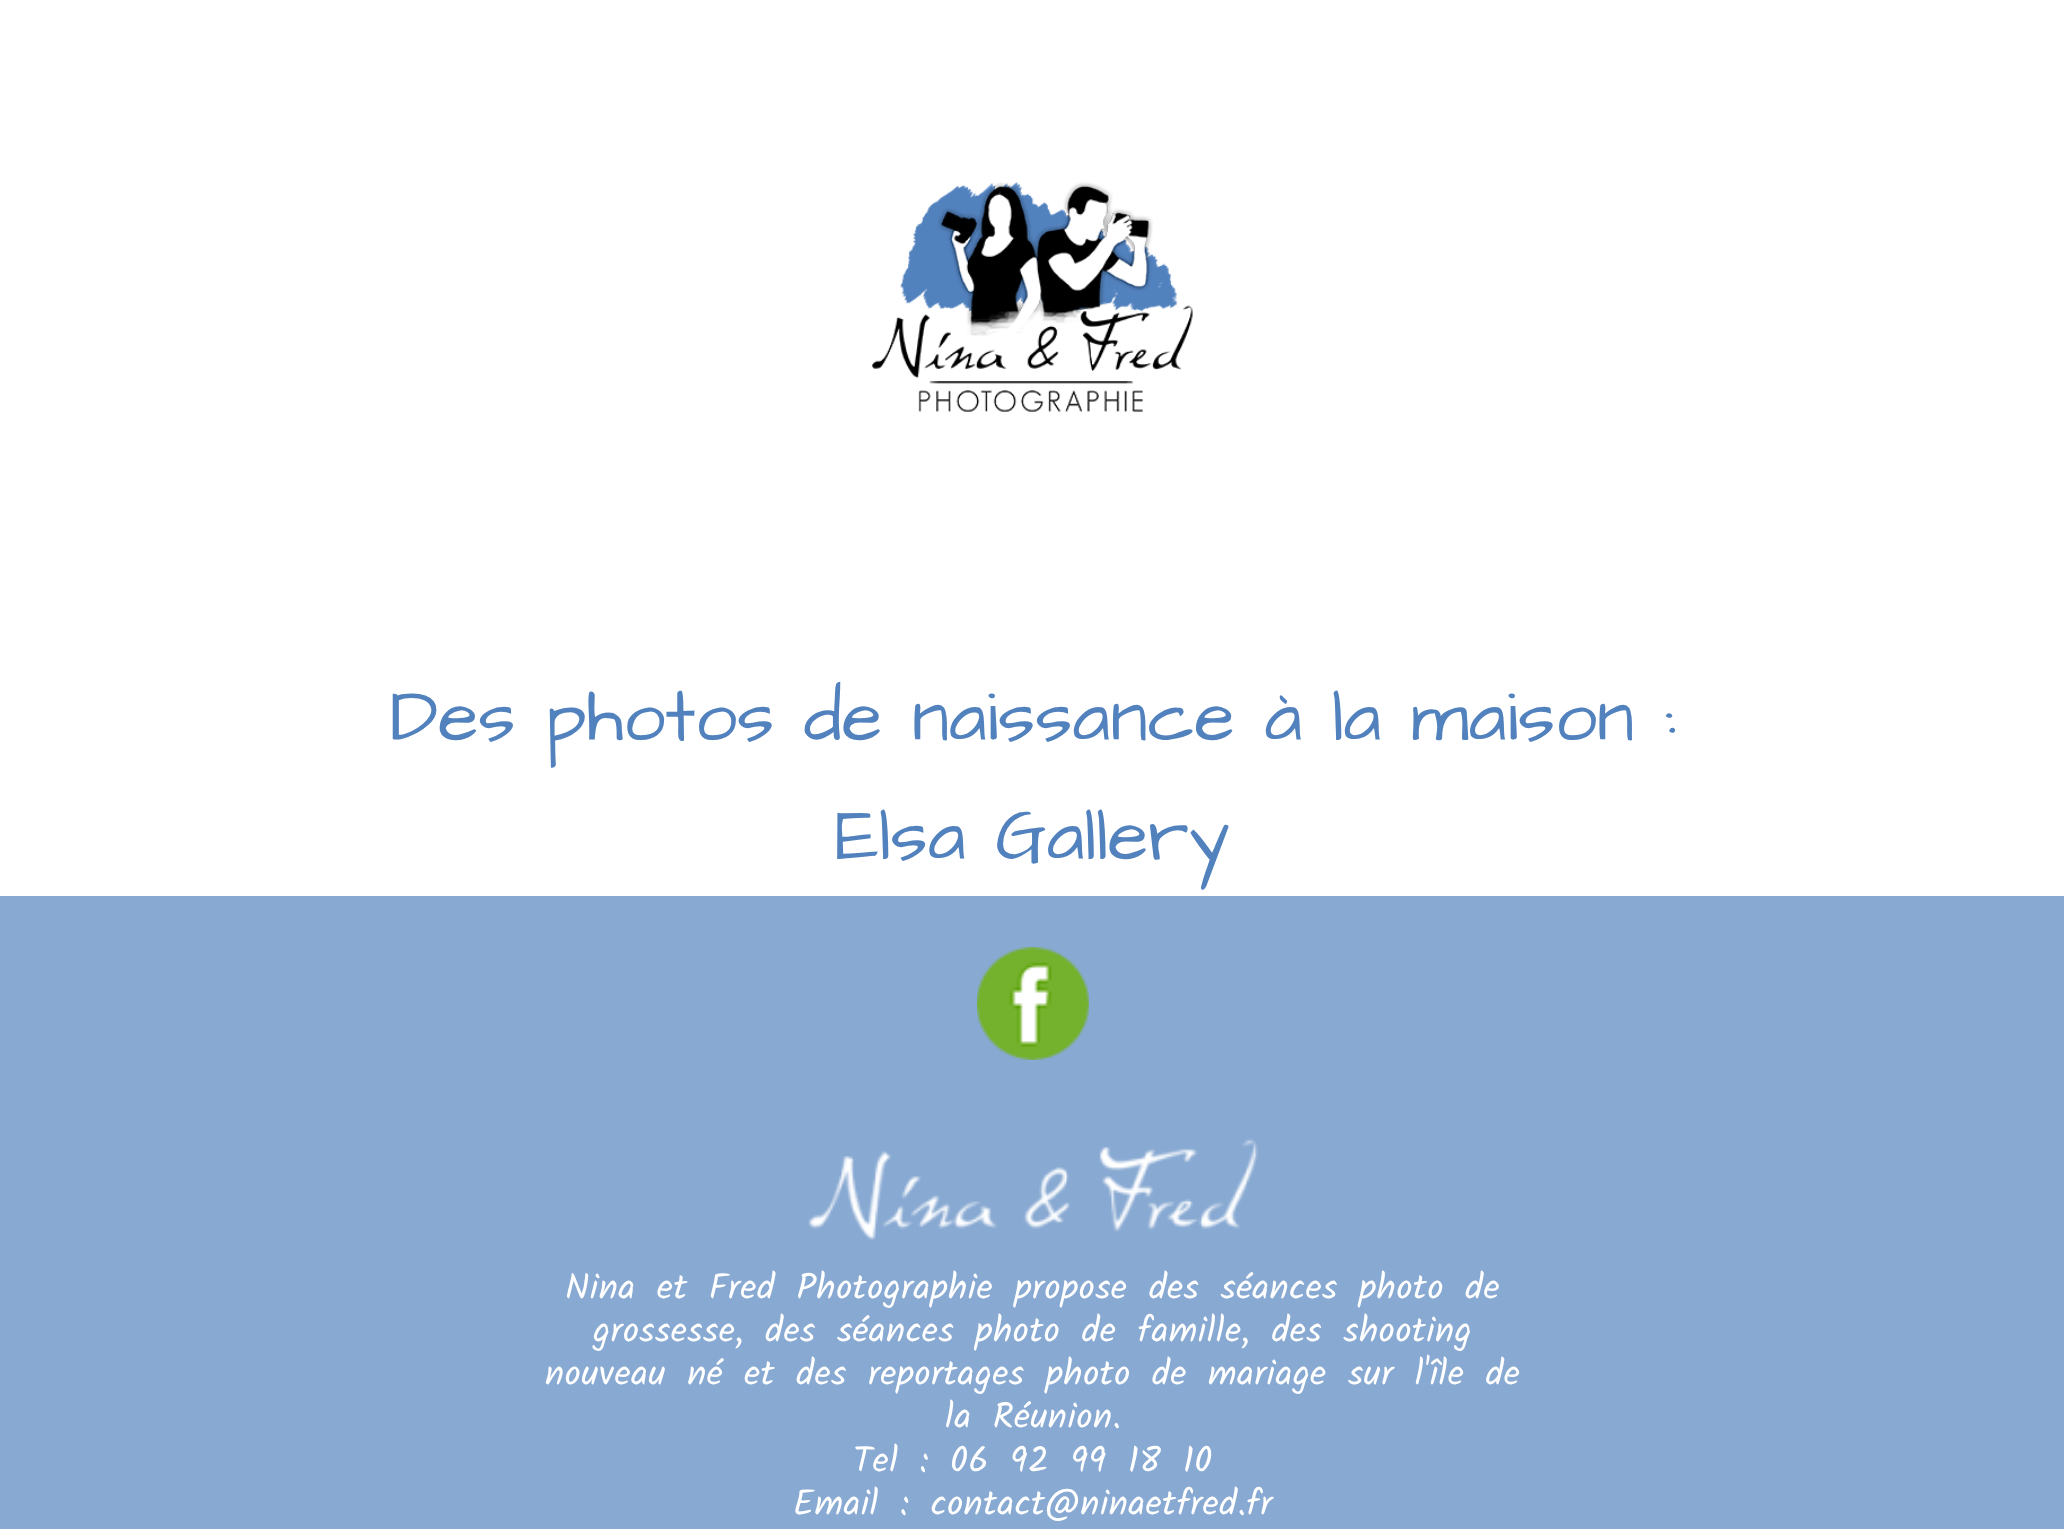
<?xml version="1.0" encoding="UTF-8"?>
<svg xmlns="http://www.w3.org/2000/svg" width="2064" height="1529">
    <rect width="100%" height="100%" fill="#FFFFFF"/>
    <image x="871" y="182" width="322" height="230" href="img_01.png"/>
    <text x="390" y="740" font-family="Architects Daughter" font-size="74.25" fill="#5282BE">Des photos de naissance à la maison :</text>
    <text x="835" y="859" font-family="Architects Daughter" font-size="74.25" fill="#5282BE">Elsa Gallery</text>
    <rect x="0" y="896" width="2064" height="633" fill="#88A9D2"/>
    <image x="977" y="947" width="112" height="113" href="img_02.png"/>
    <image x="808" y="1138" width="450" height="103" href="img_03.png"/>
    <text x="565" y="1299" word-spacing="6.5" font-family="Kalam" font-size="36" letter-spacing="0.35" fill="#FFFFFF">Nina et Fred Photographie propose des séances photo de</text>
    <text x="593" y="1342" word-spacing="6.5" font-family="Kalam" font-size="36" letter-spacing="0.35" fill="#FFFFFF">grossesse, des séances photo de famille, des shooting</text>
    <text x="545" y="1385" word-spacing="6.5" font-family="Kalam" font-size="36" letter-spacing="0.35" fill="#FFFFFF">nouveau né</text>
    <text x="744" y="1385" word-spacing="6.5" font-family="Kalam" font-size="36" letter-spacing="0.35" fill="#FFFFFF">et des reportages photo de mariage sur l'île de</text>
    <text x="945" y="1428" word-spacing="6.5" font-family="Kalam" font-size="36" letter-spacing="0.35" fill="#FFFFFF">la Réunion.</text>
    <text x="853" y="1472" word-spacing="6.5" font-family="Kalam" font-size="36" letter-spacing="0.35" fill="#FFFFFF">Tel : 06 92 99 18 10</text>
    <text x="793" y="1515" word-spacing="6.5" font-family="Kalam" font-size="36" letter-spacing="0.35" fill="#FFFFFF">Email : contact@ninaetfred.fr</text>
</svg>
